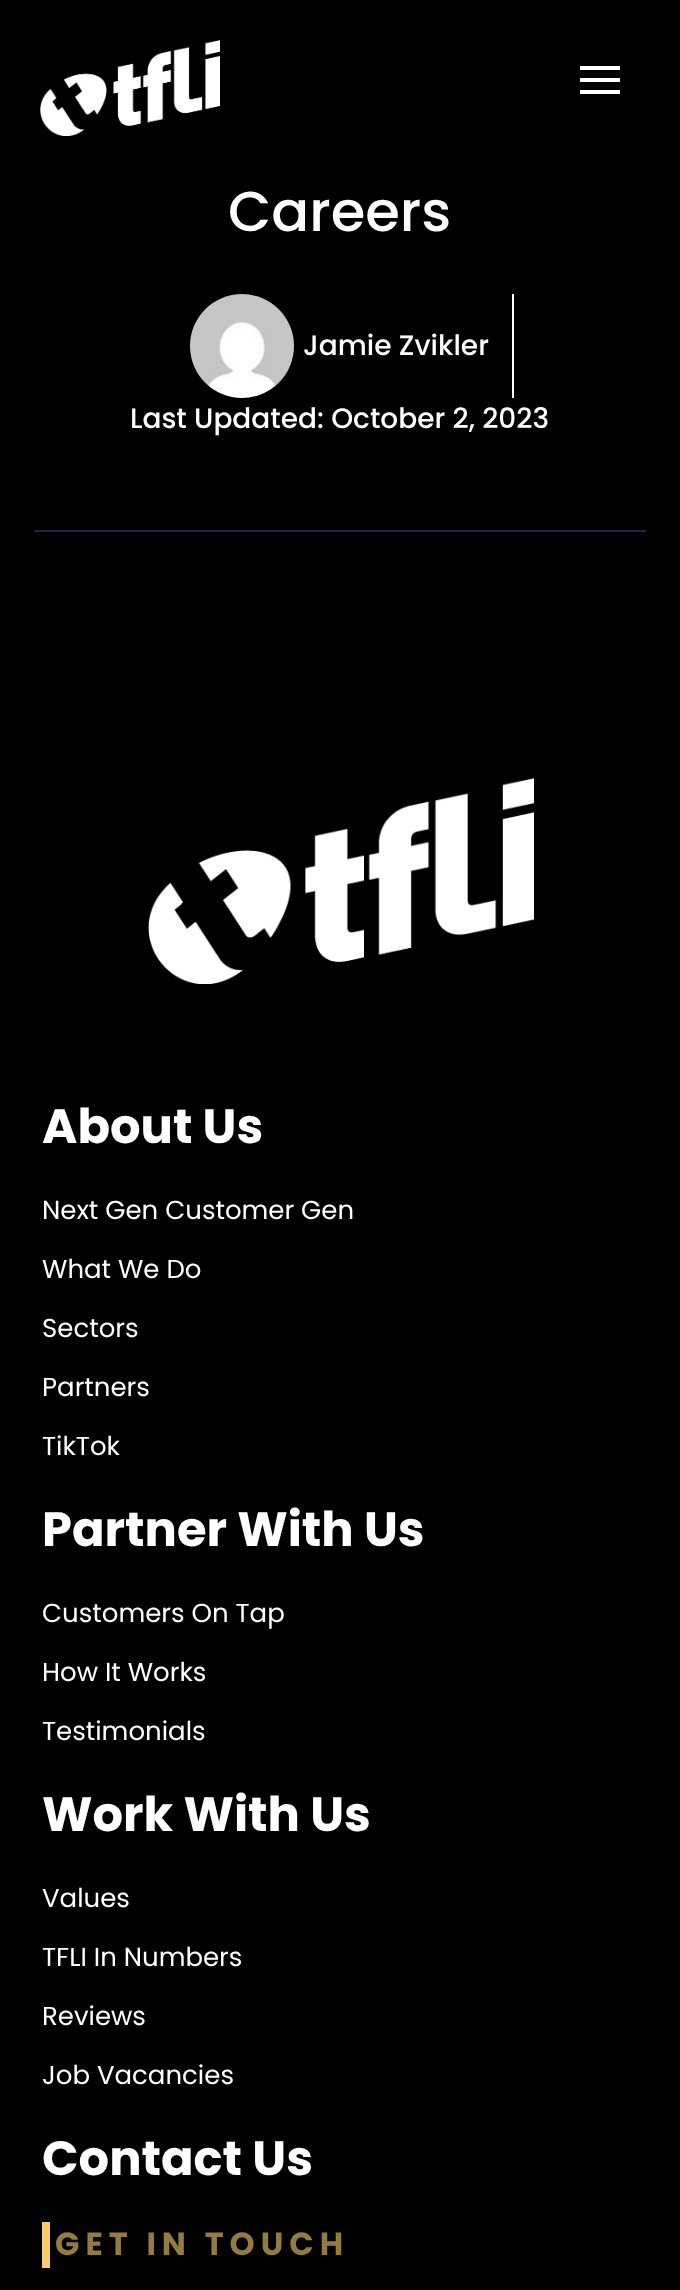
<?xml version="1.0" encoding="UTF-8"?>
<svg xmlns="http://www.w3.org/2000/svg" width="680" height="2290">
    <rect width="100%" height="100%" fill="#000000"/>
    <image x="40" y="40" width="180" height="96" href="img_01.png"/>
    <rect x="580" y="66" width="40" height="4" fill="#FFFFFF"/>
    <rect x="580" y="78" width="40" height="4" fill="#FFFFFF"/>
    <rect x="580" y="90" width="40" height="4" fill="#FFFFFF"/>
    <text x="228" y="231" font-family="Poppins" font-size="56" font-weight="500" fill="#FFFFFF">Careers</text>
    <image x="190" y="294" width="104" height="104" href="img_02.png"/>
    <text x="303" y="355" font-family="Poppins" font-size="28" font-weight="500" fill="#FFFFFF">Jamie Zvikler</text>
    <rect x="512" y="294" width="2" height="104" fill="#FFFFFF"/>
    <text x="130" y="428" font-family="Poppins" font-size="28" font-weight="500" fill="#FFFFFF">Last Updated: October 2, 2023</text>
    <rect x="34" y="530" width="612" height="2" fill="#1C244B"/>
    <image x="148" y="778" width="386" height="206" href="img_03.png"/>
    <text x="42" y="1143" font-family="Poppins" font-size="48" font-weight="700" fill="#FFFFFF">About Us</text>
    <text x="42" y="1219" font-family="Poppins" font-size="26" fill="#FFFFFF">Next Gen Customer Gen</text>
    <text x="42" y="1278" font-family="Poppins" font-size="26" fill="#FFFFFF">What We Do</text>
    <text x="42" y="1337" font-family="Poppins" font-size="26" fill="#FFFFFF">Sectors</text>
    <text x="42" y="1396" font-family="Poppins" font-size="26" fill="#FFFFFF">Partners</text>
    <text x="42" y="1455" font-family="Poppins" font-size="26" fill="#FFFFFF">TikTok</text>
    <text x="42" y="1546" font-family="Poppins" font-size="48" font-weight="700" fill="#FFFFFF">Partner With Us</text>
    <text x="42" y="1622" font-family="Poppins" font-size="26" fill="#FFFFFF">Customers On Tap</text>
    <text x="42" y="1681" font-family="Poppins" font-size="26" fill="#FFFFFF">How It Works</text>
    <text x="42" y="1740" font-family="Poppins" font-size="26" fill="#FFFFFF">Testimonials</text>
    <text x="42" y="1831" font-family="Poppins" font-size="48" font-weight="700" fill="#FFFFFF">Work With Us</text>
    <text x="42" y="1907" font-family="Poppins" font-size="26" fill="#FFFFFF">Values</text>
    <text x="42" y="1966" font-family="Poppins" font-size="26" fill="#FFFFFF">TFLI In Numbers</text>
    <text x="42" y="2025" font-family="Poppins" font-size="26" fill="#FFFFFF">Reviews</text>
    <text x="42" y="2084" font-family="Poppins" font-size="26" fill="#FFFFFF">Job Vacancies</text>
    <text x="42" y="2175" font-family="Poppins" font-size="48" font-weight="700" fill="#FFFFFF">Contact Us</text>
    <rect x="42" y="2222" width="8" height="46" fill="#F7CE68"/>
    <text x="55" y="2255" font-family="Poppins" font-size="32" font-weight="700" letter-spacing="6" fill="#947C3E">GET IN TOUCH</text>
</svg>
